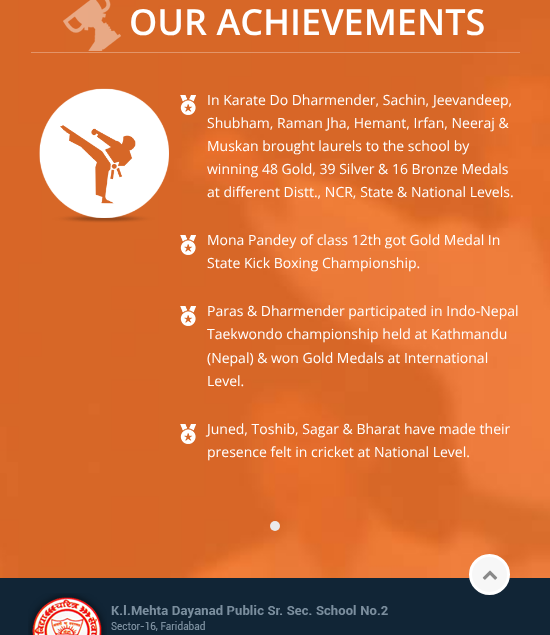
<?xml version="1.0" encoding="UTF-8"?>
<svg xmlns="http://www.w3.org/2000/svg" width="550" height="635">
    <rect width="100%" height="100%" fill="#112536"/>
    <image x="0" y="0" width="550" height="578" href="img_01.png"/>
    <rect x="31" y="52" width="489" height="1" fill="#FFFFFF" fill-opacity="0.3"/>
    <image x="63" y="0" width="58" height="51" href="img_02.png"/>
    <text x="129" y="35" font-family="Open Sans" font-size="36" font-weight="600" fill="#FFFFFF">OUR ACHIEVEMENTS</text>
    <image x="39" y="88" width="130" height="135" href="img_03.png"/>
    <image x="180" y="95" width="16" height="20" href="img_04.png"/>
    <text font-family="Open Sans" font-size="14" fill="#FFFFFF">
        <tspan x="207" y="105">In Karate Do Dharmender, Sachin, Jeevandeep,</tspan>
        <tspan x="207" y="128">Shubham, Raman Jha, Hemant, Irfan, Neeraj &amp;</tspan>
        <tspan x="207" y="151">Muskan brought laurels to the school by</tspan>
        <tspan x="207" y="174">winning 48 Gold, 39 Silver &amp; 16 Bronze Medals</tspan>
        <tspan x="207" y="197">at different Distt., NCR, State &amp; National Levels.</tspan>
    </text>
    <image x="180" y="235" width="16" height="20" href="img_04.png"/>
    <text font-family="Open Sans" font-size="14" fill="#FFFFFF">
        <tspan x="207" y="245">Mona Pandey of class 12th got Gold Medal In</tspan>
        <tspan x="207" y="268">State Kick Boxing Championship.</tspan>
    </text>
    <image x="180" y="306" width="16" height="20" href="img_05.png"/>
    <text font-family="Open Sans" font-size="14" fill="#FFFFFF">
        <tspan x="207" y="316">Paras &amp; Dharmender participated in Indo-Nepal</tspan>
        <tspan x="207" y="339">Taekwondo championship held at Kathmandu</tspan>
        <tspan x="207" y="363">(Nepal) &amp; won Gold Medals at International</tspan>
        <tspan x="207" y="386">Level.</tspan>
    </text>
    <image x="180" y="424" width="16" height="20" href="img_06.png"/>
    <text font-family="Open Sans" font-size="14" fill="#FFFFFF">
        <tspan x="207" y="434">Juned, Toshib, Sagar &amp; Bharat have made their</tspan>
        <tspan x="207" y="457">presence felt in cricket at National Level.</tspan>
    </text>
    <circle cx="275" cy="526" r="5" fill="#EBEBEB"/>
    <image x="28" y="593" width="360" height="42" href="img_07.png"/>
    <circle cx="489.5" cy="574.5" r="19" fill="#F7F7F7" stroke="#FFFFFF" stroke-width="3"/>
    <image x="482" y="570" width="16" height="10" href="img_08.png"/>
</svg>
